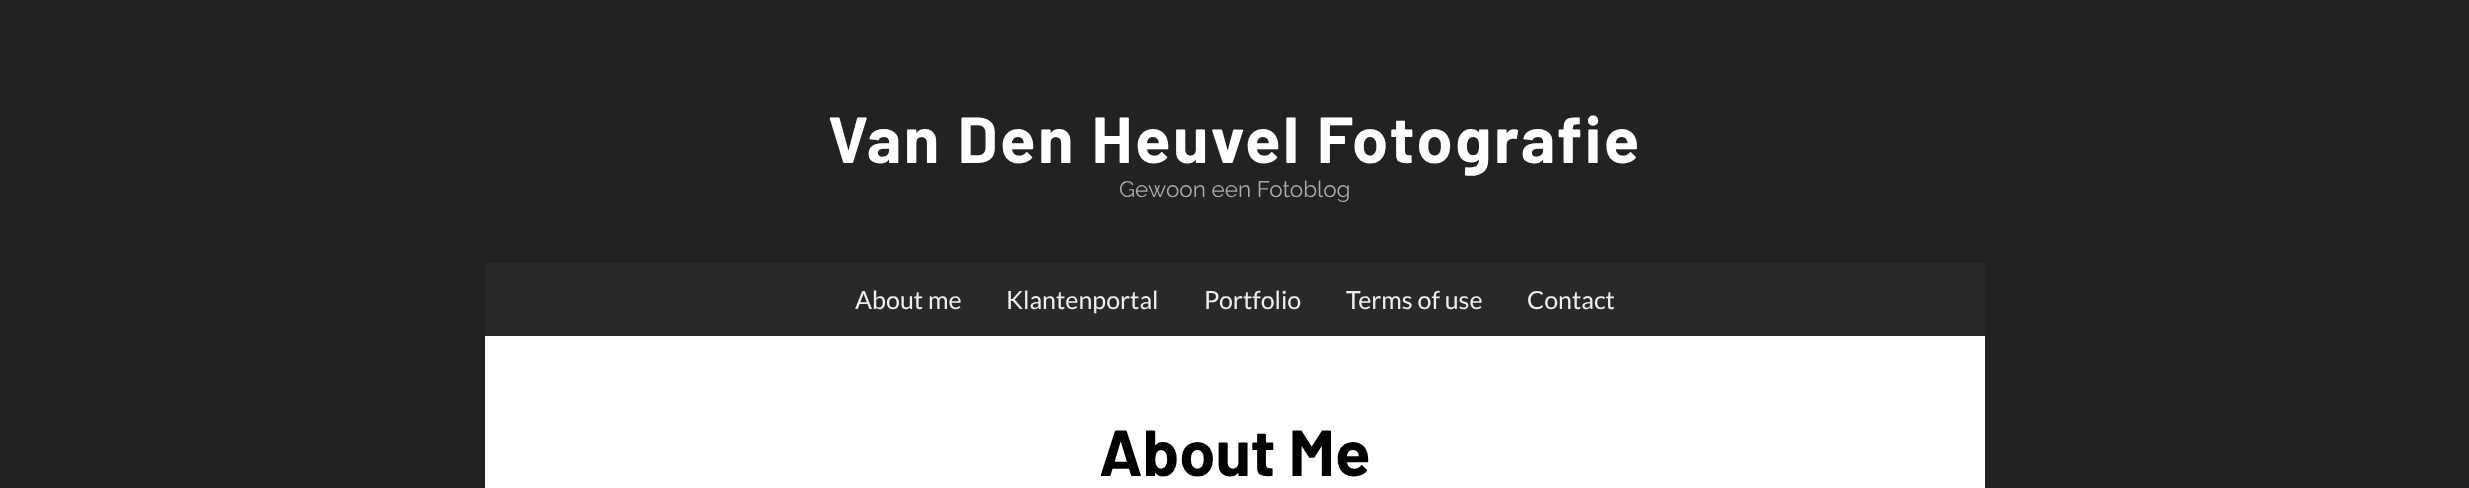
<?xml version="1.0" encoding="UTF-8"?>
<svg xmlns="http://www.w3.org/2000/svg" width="2469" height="488">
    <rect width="100%" height="100%" fill="#222222"/>
    <text x="828" y="163" font-family="Barlow" font-size="65" font-weight="700" letter-spacing="2.5" fill="#FFFFFF">Van Den Heuvel Fotografie</text>
    <text x="1119" y="197" font-family="Raleway" font-size="22.5" fill="#AAAAAA">Gewoon een Fotoblog</text>
    <rect x="485" y="263" width="1500" height="73" fill="#292929"/>
    <text x="855" y="309" font-family="Lato" font-size="25" fill="#EEEEEE">About me</text>
    <text x="1006" y="309" font-family="Lato" font-size="25" fill="#EEEEEE">Klantenportal</text>
    <text x="1204" y="309" font-family="Lato" font-size="25" fill="#EEEEEE">Portfolio</text>
    <text x="1346" y="309" font-family="Lato" font-size="25" fill="#EEEEEE">Terms of use</text>
    <text x="1527" y="309" font-family="Lato" font-size="25" fill="#EEEEEE">Contact</text>
    <rect x="485" y="336" width="1500" height="152" fill="#FFFFFF"/>
    <text x="1099" y="476" font-family="Barlow" font-size="65" font-weight="700" fill="#000000">About Me</text>
</svg>
